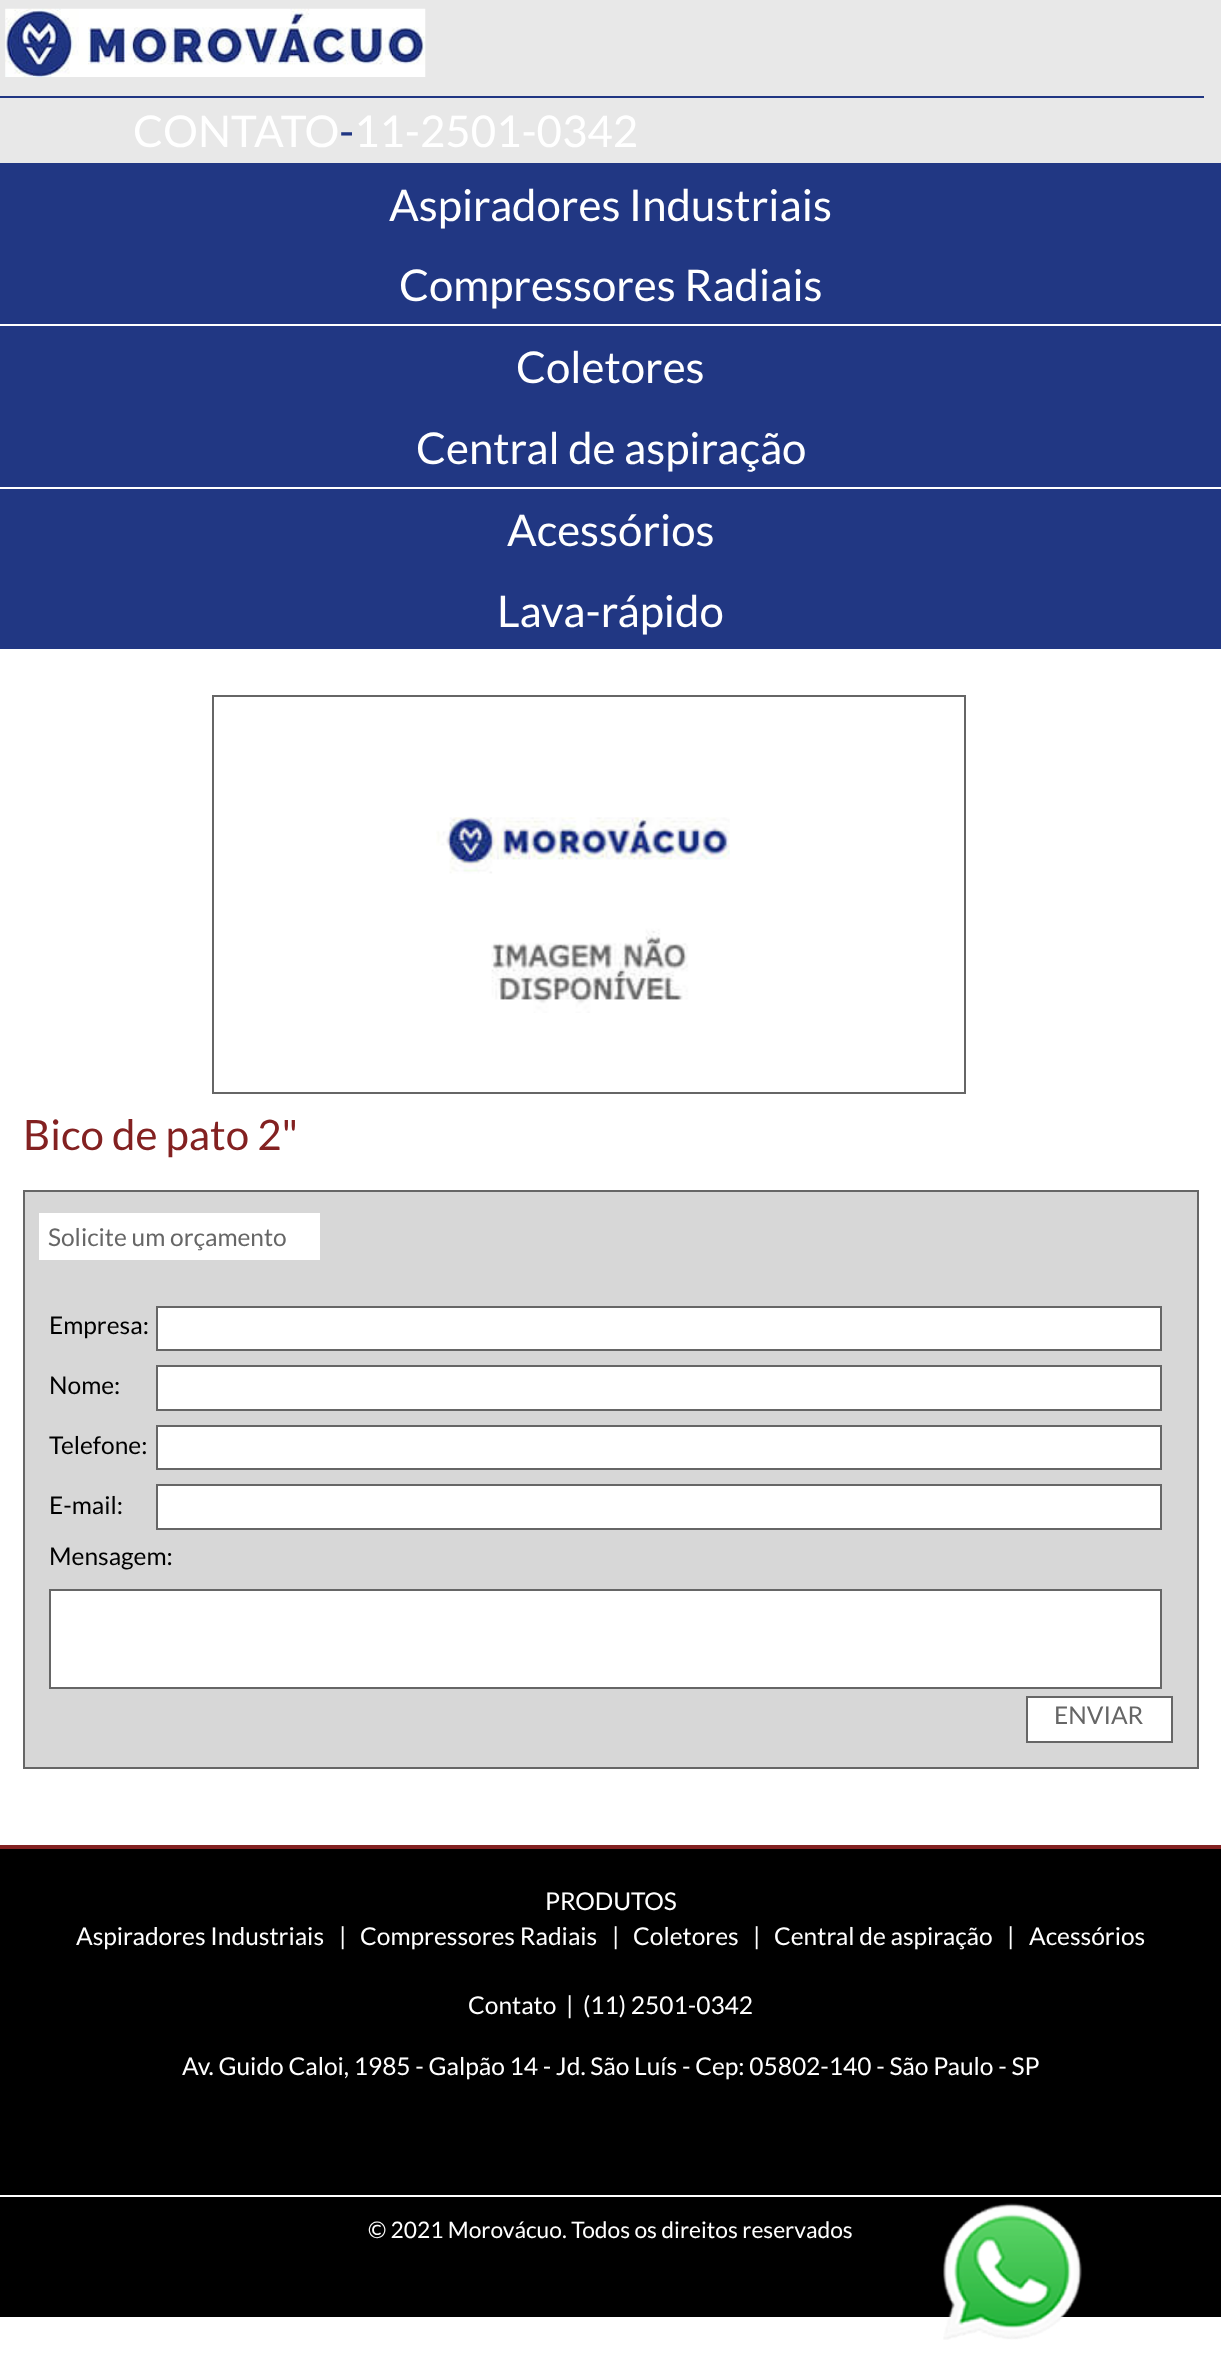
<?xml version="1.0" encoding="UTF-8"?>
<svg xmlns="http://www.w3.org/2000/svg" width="1221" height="2377">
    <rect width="100%" height="100%" fill="#FFFFFF"/>
    <rect x="0" y="0" width="1221" height="163" fill="#E8E8E8"/>
    <image x="5" y="8" width="421" height="69" href="img_01.png"/>
    <rect x="0" y="96" width="1204" height="2" fill="#203683"/>
    <text x="133" y="147" font-family="Lato" font-size="43.75" fill="#FFFFFF">CONTATO</text>
    <text x="339" y="147" font-family="Lato" font-size="43.75" fill="#203683">-</text>
    <text x="354" y="147" font-family="Lato" font-size="43.75" fill="#FFFFFF">11-2501-0342</text>
    <rect x="0" y="163" width="1221" height="486" fill="#213783"/>
    <rect x="0" y="324" width="1221" height="2" fill="#FFFFFF"/>
    <text x="389" y="221" font-family="Lato" font-size="43.75" fill="#FFFFFF">Aspiradores Industriais</text>
    <text x="399" y="301" font-family="Lato" font-size="43.75" fill="#FFFFFF">Compressores Radiais</text>
    <rect x="0" y="487" width="1221" height="2" fill="#FFFFFF"/>
    <text x="516" y="383" font-family="Lato" font-size="43.75" fill="#FFFFFF">Coletores</text>
    <text x="416" y="464" font-family="Lato" font-size="43.75" fill="#FFFFFF">Central de aspiração</text>
    <text x="507" y="546" font-family="Lato" font-size="43.75" fill="#FFFFFF">Acessórios</text>
    <text x="497" y="627" font-family="Lato" font-size="43.75" fill="#FFFFFF">Lava-rápido</text>
    <rect x="213" y="696" width="752" height="397" fill="none" stroke="#666666" stroke-width="2"/>
    <image x="436" y="817" width="294" height="196" href="img_02.png"/>
    <text x="23" y="1150" font-family="Lato" font-size="42" fill="#832121">Bico de pato 2"</text>
    <rect x="24" y="1191" width="1174" height="577" fill="#D7D7D7" stroke="#666666" stroke-width="2"/>
    <rect x="39" y="1213" width="281" height="47" fill="#FFFFFF"/>
    <text x="48" y="1246" font-family="Lato" font-size="24.5" fill="#666666">Solicite um orçamento</text>
    <text x="49" y="1334" font-family="Lato" font-size="24.5" fill="#000000">Empresa:</text>
    <rect x="157" y="1307" width="1004" height="43" fill="#FFFFFF" stroke="#666666" stroke-width="2"/>
    <text x="49" y="1394" font-family="Lato" font-size="24.5" fill="#000000">Nome:</text>
    <rect x="157" y="1366" width="1004" height="44" fill="#FFFFFF" stroke="#666666" stroke-width="2"/>
    <text x="49" y="1454" font-family="Lato" font-size="24.5" fill="#000000">Telefone:</text>
    <rect x="157" y="1426" width="1004" height="43" fill="#FFFFFF" stroke="#666666" stroke-width="2"/>
    <text x="49" y="1514" font-family="Lato" font-size="24.5" fill="#000000">E-mail:</text>
    <rect x="157" y="1485" width="1004" height="44" fill="#FFFFFF" stroke="#666666" stroke-width="2"/>
    <text x="49" y="1565" font-family="Lato" font-size="24.5" fill="#000000">Mensagem:</text>
    <rect x="50" y="1590" width="1111" height="98" fill="#FFFFFF" stroke="#666666" stroke-width="2"/>
    <rect x="1027" y="1697" width="145" height="45" fill="#FFFFFF" stroke="#666666" stroke-width="2"/>
    <text x="1054" y="1724" font-family="Lato" font-size="24.5" fill="#666666">ENVIAR</text>
    <rect x="0" y="1849" width="1221" height="346" fill="#000000"/>
    <rect x="0" y="1845" width="1221" height="4" fill="#832121"/>
    <text x="545" y="1910" font-family="Lato" font-size="24.5" fill="#FFFFFF">PRODUTOS</text>
    <text x="76" y="1945" font-family="Lato" font-size="24.5" fill="#FFFFFF">Aspiradores Industriais</text>
    <text x="339" y="1945" font-family="Lato" font-size="24.5" fill="#FFFFFF">|</text>
    <text x="360" y="1945" font-family="Lato" font-size="24.5" fill="#FFFFFF">Compressores Radiais</text>
    <text x="612" y="1945" font-family="Lato" font-size="24.5" fill="#FFFFFF">|</text>
    <text x="633" y="1945" font-family="Lato" font-size="24.5" fill="#FFFFFF">Coletores</text>
    <text x="753" y="1945" font-family="Lato" font-size="24.5" fill="#FFFFFF">|</text>
    <text x="774" y="1945" font-family="Lato" font-size="24.5" fill="#FFFFFF">Central de aspiração</text>
    <text x="1007" y="1945" font-family="Lato" font-size="24.5" fill="#FFFFFF">|</text>
    <text x="1029" y="1945" font-family="Lato" font-size="24.5" fill="#FFFFFF">Acessórios</text>
    <text x="468" y="2014" font-family="Lato" font-size="24.5" fill="#FFFFFF">Contato</text>
    <text x="566" y="2014" font-family="Lato" font-size="24.5" fill="#FFFFFF">|</text>
    <text x="583" y="2014" font-family="Lato" font-size="24.5" fill="#FFFFFF">(11) 2501-0342</text>
    <text x="182" y="2075" font-family="Lato" font-size="24.5" fill="#FFFFFF">Av. Guido Caloi, 1985 - Galpão 14 - Jd. São Luís - Cep: 05802-140 - São Paulo - SP</text>
    <rect x="0" y="2197" width="1221" height="120" fill="#000000"/>
    <text x="368" y="2238" font-family="Lato" font-size="22.75" fill="#FFFFFF">© 2021 Morovácuo. Todos os direitos reservados</text>
    <image x="943" y="2203" width="139" height="137" href="img_03.png"/>
</svg>
